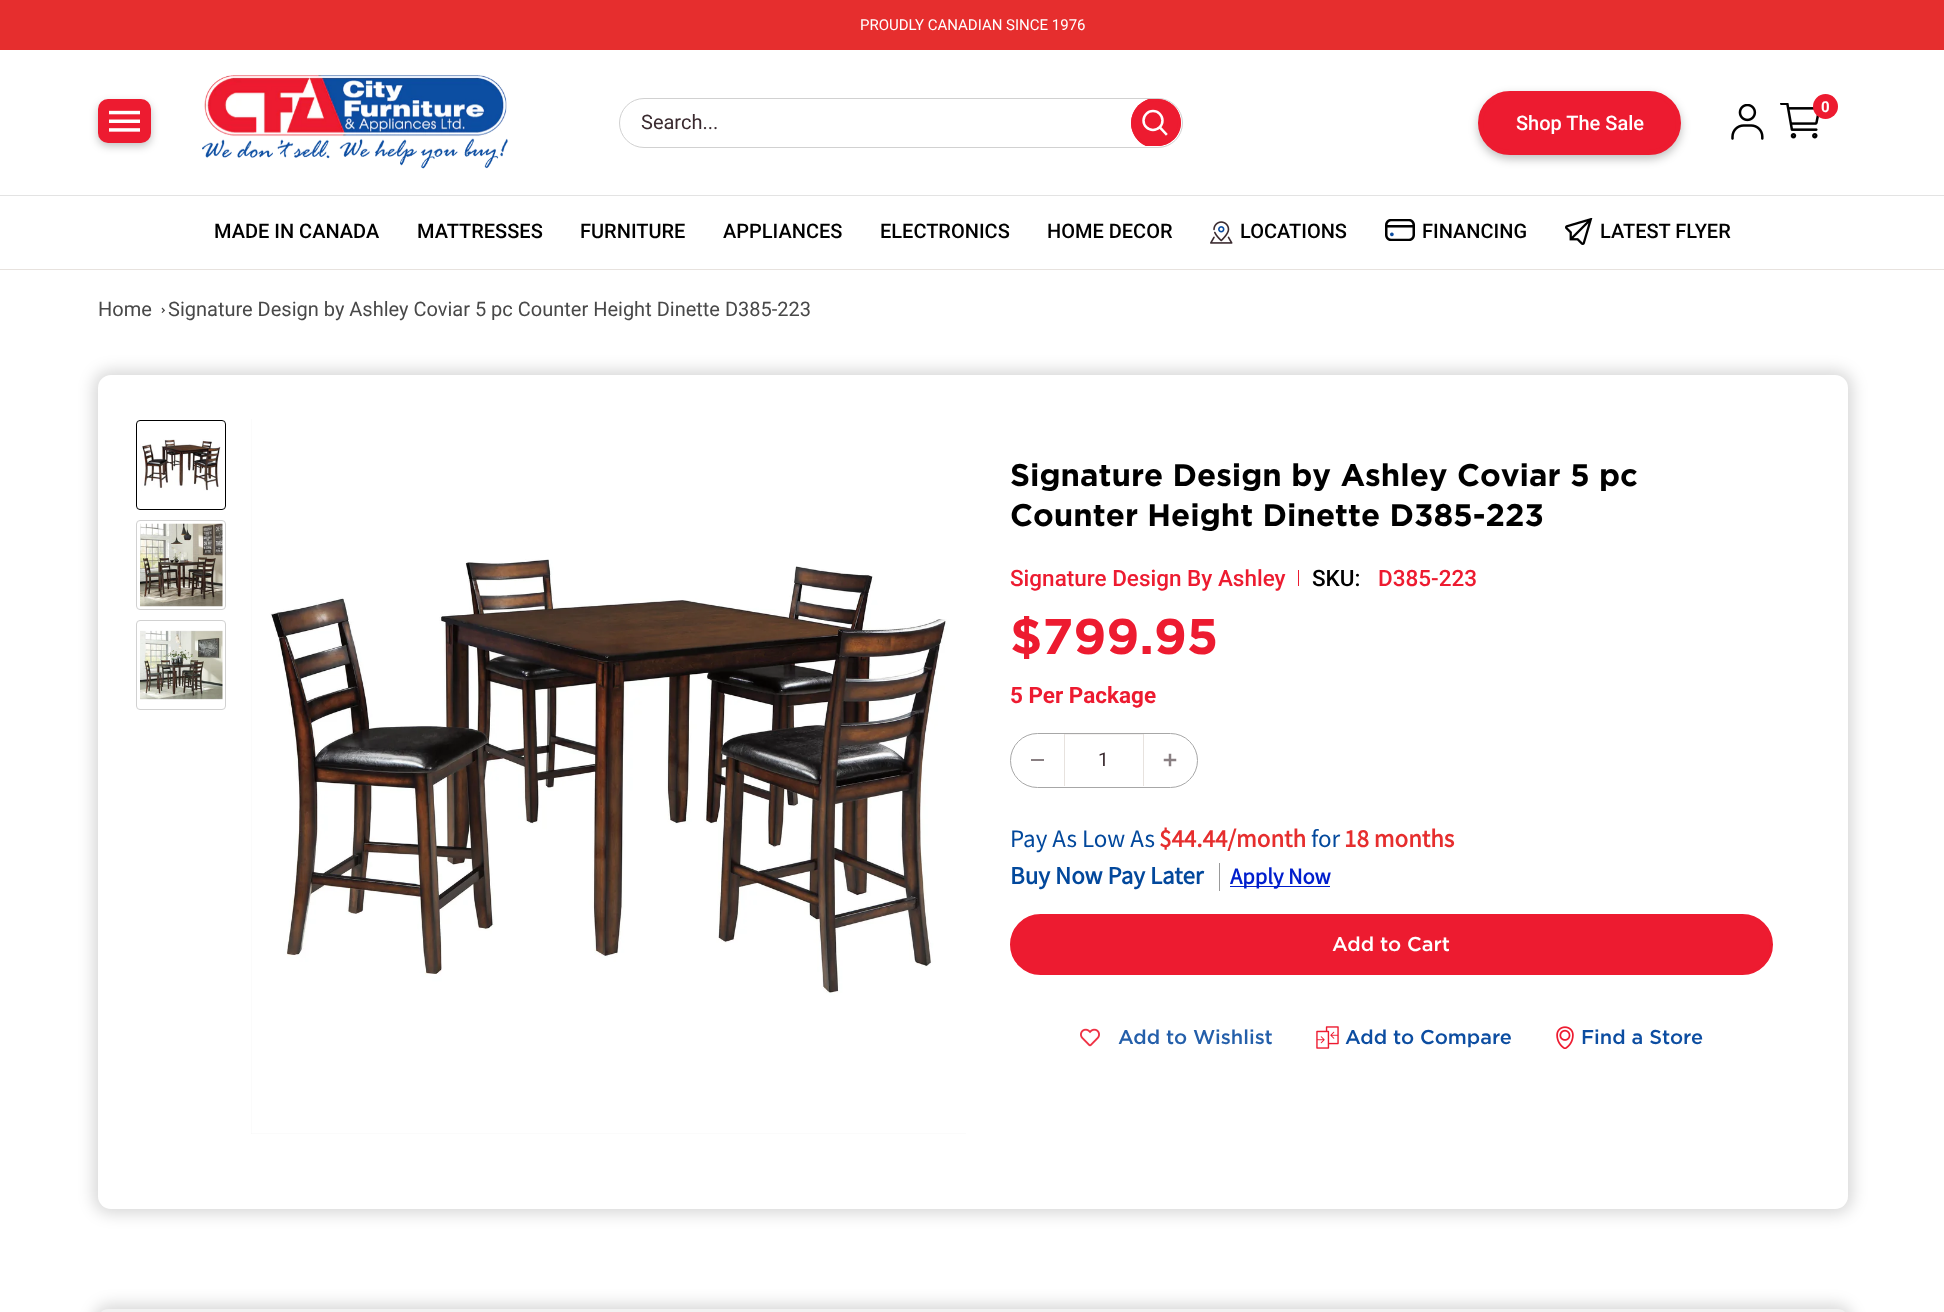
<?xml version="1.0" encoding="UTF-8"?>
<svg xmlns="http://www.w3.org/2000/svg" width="1944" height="1312">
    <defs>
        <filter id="blur1" x="-50%" y="-200%" width="200%" height="500%"><feGaussianBlur stdDeviation="4"/></filter>
        <clipPath id="clip1"><rect x="620" y="99" width="561" height="47" rx="23.5"/></clipPath>
        <filter id="blur2" x="-50%" y="-200%" width="200%" height="500%"><feGaussianBlur stdDeviation="5"/></filter>
        <filter id="blur3" x="-50%" y="-200%" width="200%" height="500%"><feGaussianBlur stdDeviation="7.5"/></filter>
    </defs>
    <rect width="100%" height="100%" fill="#FFFFFF"/>
    <rect x="0" y="0" width="1944" height="50" fill="#E62E2E"/>
    <text x="860" y="30" font-family="Roboto" font-size="15" fill="#FFFFFF">PROUDLY CANADIAN SINCE 1976</text>
    <rect x="0" y="195" width="1944" height="1" fill="#E3E3E3"/>
    <rect x="98" y="103" width="53" height="43" rx="10" fill="#000000" fill-opacity="0.25" filter="url(#blur1)"/>
    <rect x="98" y="99" width="53" height="44" rx="10" fill="#ED1B30"/>
    <image x="109" y="110" width="31" height="22" href="img_01.png"/>
    <image x="202" y="75" width="306" height="94" href="img_02.png"/>
    <rect x="619.5" y="98.5" width="563" height="49" rx="24.5" fill="none" stroke="#D1D1D1"/>
    <text x="641" y="129" font-family="Roboto" font-size="20" fill="#3A2A2F">Search...</text>
    <g clip-path="url(#clip1)">
        <circle cx="1156" cy="123" r="25" fill="#ED1B30"/>
    </g>
    <path d="M 1146 146 C 1137 142 1131 133 1131 123 C 1131 112 1139 102 1149 99 H 1158 C 1165 99 1172 103 1176 108 C 1179 112 1181 117 1181 123 C 1181 136 1170 146 1158 146 Z M 1156 101 C 1127 101 1127 145 1156 145 C 1185 145 1185 101 1156 101 Z" fill="#ED1B30" fill-rule="evenodd"/>
    <path d="M 1166 134 L 1160 127.5" fill="none" stroke="#FFFFFF" stroke-width="2.5" stroke-linecap="square"/>
    <circle cx="1153" cy="120.5" r="9.5" fill="none" stroke="#FFFFFF" stroke-width="2.5"/>
    <rect x="1478" y="95" width="203" height="64" rx="32" fill="#000000" fill-opacity="0.25" filter="url(#blur2)"/>
    <rect x="1480.5" y="93.5" width="198" height="59" rx="29.5" fill="#ED1B30" stroke="#ED1B30" stroke-width="5"/>
    <text x="1516" y="130" font-family="Roboto" font-size="20" font-weight="500" fill="#FFFFFF">Shop The Sale</text>
    <image x="1731" y="104" width="33" height="36" href="img_03.png"/>
    <image x="1780" y="103" width="39" height="36" href="img_04.png"/>
    <circle cx="1825.5" cy="106.5" r="12.5" fill="#ED1B30"/>
    <text x="1821" y="112" font-family="Roboto" font-size="15" font-weight="700" fill="#FFFFFF">0</text>
    <rect x="0" y="269" width="1944" height="1" fill="#E7E2DE"/>
    <text x="214" y="238" font-family="Roboto" font-size="20" font-weight="500" fill="#000000">MADE IN CANADA</text>
    <text x="417" y="238" font-family="Roboto" font-size="20" font-weight="500" fill="#000000">MATTRESSES</text>
    <text x="580" y="238" font-family="Roboto" font-size="20" font-weight="500" fill="#000000">FURNITURE</text>
    <text x="723" y="238" font-family="Roboto" font-size="20" font-weight="500" fill="#000000">APPLIANCES</text>
    <text x="880" y="238" font-family="Roboto" font-size="20" font-weight="500" fill="#000000">ELECTRONICS</text>
    <text x="1047" y="238" font-family="Roboto" font-size="20" font-weight="500" fill="#000000">HOME DECOR</text>
    <image x="1210" y="221" width="23" height="23" href="img_05.png"/>
    <text x="1240" y="238" font-family="Roboto" font-size="20" font-weight="500" fill="#000000">LOCATIONS</text>
    <image x="1385" y="219" width="30" height="22" href="img_06.png"/>
    <text x="1422" y="238" font-family="Roboto" font-size="20" font-weight="500" fill="#000000">FINANCING</text>
    <image x="1565" y="218" width="28" height="27" href="img_07.png"/>
    <text x="1600" y="238" font-family="Roboto" font-size="20" font-weight="500" fill="#000000">LATEST FLYER</text>
    <text x="98" y="316" font-family="Roboto" font-size="20" fill="#484848">Home</text>
    <path d="M 162.5 307.5 L 165 310.5 L 164 311 L 161.5 308.5 Z" fill="#484848"/>
    <path d="M 164 309.5 L 165 310.5 L 162.5 313 L 161.5 312.5 Z" fill="#484848"/>
    <text x="168" y="316" font-family="Roboto" font-size="20" fill="#484848">Signature Design by Ashley Coviar 5 pc Counter Height Dinette D385-223</text>
    <rect x="93" y="370" width="1760" height="844" rx="18" fill="#000000" fill-opacity="0.15" filter="url(#blur3)"/>
    <rect x="98" y="375" width="1750" height="834" rx="13" fill="#FFFFFF"/>
    <rect x="136.5" y="420.5" width="89" height="89" rx="3.5" fill="none" stroke="#000000"/>
    <image x="140" y="439" width="81" height="52" href="img_08.png"/>
    <rect x="136.5" y="520.5" width="89" height="89" rx="3.5" fill="none" stroke="#D1D1D1"/>
    <image x="140" y="523" width="83" height="84" href="img_09.png"/>
    <rect x="136.5" y="620.5" width="89" height="89" rx="3.5" fill="none" stroke="#D1D1D1"/>
    <image x="140" y="630" width="83" height="70" href="img_10.png"/>
    <rect x="251" y="419" width="715" height="715" fill="#F5F5F5"/>
    <image x="251" y="419" width="715" height="715" href="img_11.png"/>
    <text font-family="Gotham" font-size="31.25" font-weight="700" fill="#000000">
        <tspan x="1010" y="486">Signature Design by Ashley Coviar 5 pc</tspan>
        <tspan x="1010" y="526">Counter Height Dinette D385-223</tspan>
    </text>
    <text x="1010" y="586" font-family="Roboto" font-size="22.5" font-weight="500" fill="#ED1B30">Signature Design By Ashley</text>
    <rect x="1298" y="570" width="1" height="16" fill="#ED1B30"/>
    <text x="1312" y="586" font-family="Roboto" font-size="22.5" font-weight="500" fill="#000000">SKU:</text>
    <text x="1378" y="586" font-family="Roboto" font-size="22.5" font-weight="500" fill="#ED1B30">D385-223</text>
    <text x="1010" y="654" font-family="Gotham" font-size="50" font-weight="700" fill="#ED1B30">$799.95</text>
    <text x="1010" y="703" font-family="Roboto" font-size="22.5" font-weight="700" fill="#ED1B30">5 Per Package</text>
    <rect x="1010.5" y="733.5" width="187" height="54" rx="27" fill="none" stroke="#A7A7A7"/>
    <rect x="1031" y="759" width="13" height="2" fill="#897F82"/>
    <rect x="1065" y="734" width="78" height="1" fill="#F5F3F2"/>
    <rect x="1143" y="734" width="1" height="52" fill="#E7E2DE"/>
    <rect x="1064" y="734" width="1" height="52" fill="#E7E2DE"/>
    <text x="1098" y="766" font-family="Roboto" font-size="19" fill="#3A2A2F">1</text>
    <image x="1163" y="753" width="14" height="14" href="img_12.png"/>
    <text x="1010" y="847" font-family="Source Sans Pro" font-size="25" fill="#02489C">Pay As Low As</text>
    <text x="1159" y="847" font-family="Source Sans Pro" font-size="25" font-weight="700" fill="#E62E2E">$44.44/month</text>
    <text x="1311" y="847" font-family="Source Sans Pro" font-size="25" fill="#02489C">for</text>
    <text x="1344" y="847" font-family="Source Sans Pro" font-size="25" font-weight="700" fill="#E62E2E">18 months</text>
    <text x="1010" y="884" font-family="Source Sans Pro" font-size="25" font-weight="700" fill="#02489C">Buy Now Pay Later</text>
    <rect x="1230" y="886" width="100" height="1" fill="#001ECD"/>
    <text x="1230" y="884" font-family="Source Sans Pro" font-size="22.5" font-weight="700" fill="#001ECD">Apply Now</text>
    <rect x="1219" y="863" width="1" height="28" fill="#999999"/>
    <rect x="1011.5" y="915.5" width="760" height="58" rx="29" fill="#ED1B30" stroke="#ED1B30" stroke-width="3"/>
    <text x="1332" y="951" font-family="Gotham" font-size="20" font-weight="500" fill="#FFFFFF">Add to Cart</text>
    <image x="1080" y="1028" width="20" height="19" href="img_13.png"/>
    <text x="1118" y="1044" font-family="Gotham" font-size="20" font-weight="500" fill="#245FAA">Add to Wishlist</text>
    <image x="1316" y="1026" width="23" height="23" href="img_14.png"/>
    <text x="1345" y="1044" font-family="Gotham" font-size="20" font-weight="500" fill="#0C4DA1">Add to Compare</text>
    <image x="1556" y="1026" width="18" height="23" href="img_15.png"/>
    <text x="1581" y="1044" font-family="Gotham" font-size="20" font-weight="500" fill="#0C4DA1">Find a Store</text>
    <rect x="93" y="1304" width="1760" height="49" rx="18" fill="#000000" fill-opacity="0.15" filter="url(#blur3)"/>
    <path d="M 108 1309 H 1838 C 1843.5 1309 1848 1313.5 1848 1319 V 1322 H 98 V 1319 C 98 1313.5 102.5 1309 108 1309 Z" fill="#F2F2F2"/>
</svg>
